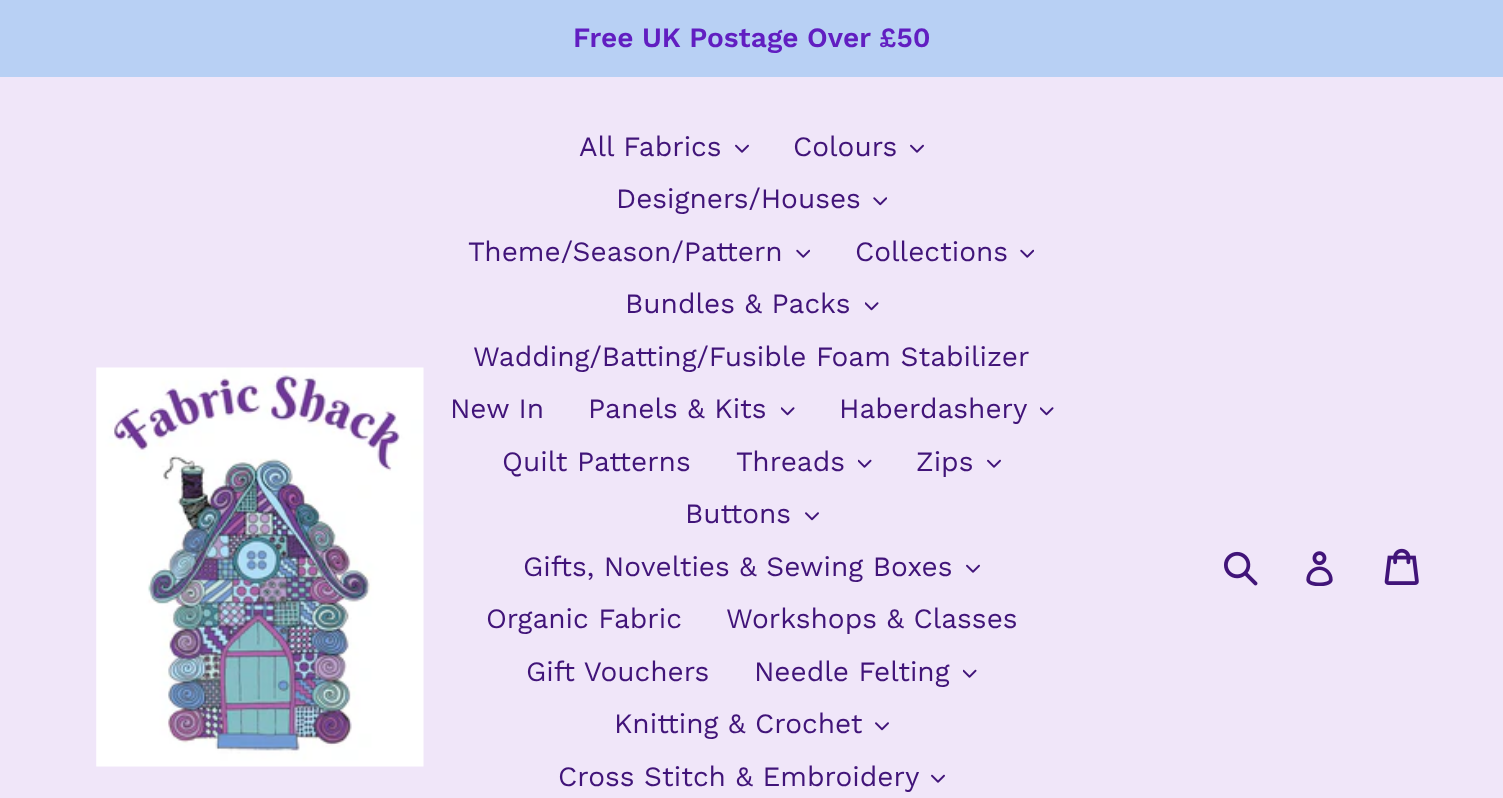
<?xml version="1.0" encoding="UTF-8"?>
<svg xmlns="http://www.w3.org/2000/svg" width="1503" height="798">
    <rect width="100%" height="100%" fill="#F0E6F9"/>
    <rect x="0" y="0" width="1503" height="77" fill="#B8D0F4"/>
    <text x="573" y="47" font-family="Work Sans" font-size="28" font-weight="600" fill="#611EC1">Free UK Postage Over £50</text>
    <image x="96" y="367" width="328" height="400" href="img_01.png"/>
    <text x="579" y="156" font-family="Work Sans" font-size="28" fill="#411479">All Fabrics</text>
    <image x="735" y="144" width="14" height="9" href="img_02.png"/>
    <text x="793" y="156" font-family="Work Sans" font-size="28" fill="#411479">Colours</text>
    <image x="910" y="144" width="14" height="9" href="img_02.png"/>
    <text x="616" y="208" font-family="Work Sans" font-size="28" fill="#411479">Designers/Houses</text>
    <image x="873" y="197" width="14" height="9" href="img_03.png"/>
    <text x="468" y="261" font-family="Work Sans" font-size="28" fill="#411479">Theme/Season/Pattern</text>
    <image x="796" y="249" width="14" height="9" href="img_04.png"/>
    <text x="855" y="261" font-family="Work Sans" font-size="28" fill="#411479">Collections</text>
    <image x="1020" y="249" width="14" height="9" href="img_04.png"/>
    <text x="625" y="313" font-family="Work Sans" font-size="28" fill="#411479">Bundles &amp; Packs</text>
    <image x="865" y="302" width="14" height="9" href="img_05.png"/>
    <text x="473" y="366" font-family="Work Sans" font-size="28" fill="#411479">Wadding/Batting/Fusible Foam Stabilizer</text>
    <text x="450" y="418" font-family="Work Sans" font-size="28" fill="#411479">New In</text>
    <text x="588" y="418" font-family="Work Sans" font-size="28" fill="#411479">Panels &amp; Kits</text>
    <image x="781" y="407" width="14" height="9" href="img_05.png"/>
    <text x="839" y="418" font-family="Work Sans" font-size="28" fill="#411479">Haberdashery</text>
    <image x="1040" y="407" width="14" height="9" href="img_05.png"/>
    <text x="502" y="471" font-family="Work Sans" font-size="28" fill="#411479">Quilt Patterns</text>
    <text x="736" y="471" font-family="Work Sans" font-size="28" fill="#411479">Threads</text>
    <image x="858" y="459" width="14" height="9" href="img_06.png"/>
    <text x="916" y="471" font-family="Work Sans" font-size="28" fill="#411479">Zips</text>
    <image x="987" y="459" width="14" height="9" href="img_02.png"/>
    <text x="685" y="523" font-family="Work Sans" font-size="28" fill="#411479">Buttons</text>
    <image x="805" y="512" width="14" height="9" href="img_07.png"/>
    <text x="523" y="576" font-family="Work Sans" font-size="28" fill="#411479">Gifts, Novelties &amp; Sewing Boxes</text>
    <image x="966" y="564" width="14" height="9" href="img_02.png"/>
    <text x="486" y="628" font-family="Work Sans" font-size="28" fill="#411479">Organic Fabric</text>
    <text x="726" y="628" font-family="Work Sans" font-size="28" fill="#411479">Workshops &amp; Classes</text>
    <text x="526" y="681" font-family="Work Sans" font-size="28" fill="#411479">Gift Vouchers</text>
    <text x="754" y="681" font-family="Work Sans" font-size="28" fill="#411479">Needle Felting</text>
    <image x="963" y="669" width="14" height="9" href="img_06.png"/>
    <text x="614" y="733" font-family="Work Sans" font-size="28" fill="#411479">Knitting &amp; Crochet</text>
    <image x="875" y="722" width="14" height="9" href="img_07.png"/>
    <text x="558" y="786" font-family="Work Sans" font-size="28" fill="#411479">Cross Stitch &amp; Embroidery</text>
    <image x="931" y="774" width="14" height="9" href="img_02.png"/>
    <image x="1224" y="551" width="34" height="35" href="img_08.png"/>
    <image x="1306" y="551" width="27" height="35" href="img_09.png"/>
    <image x="1384" y="548" width="35" height="37" href="img_10.png"/>
</svg>
